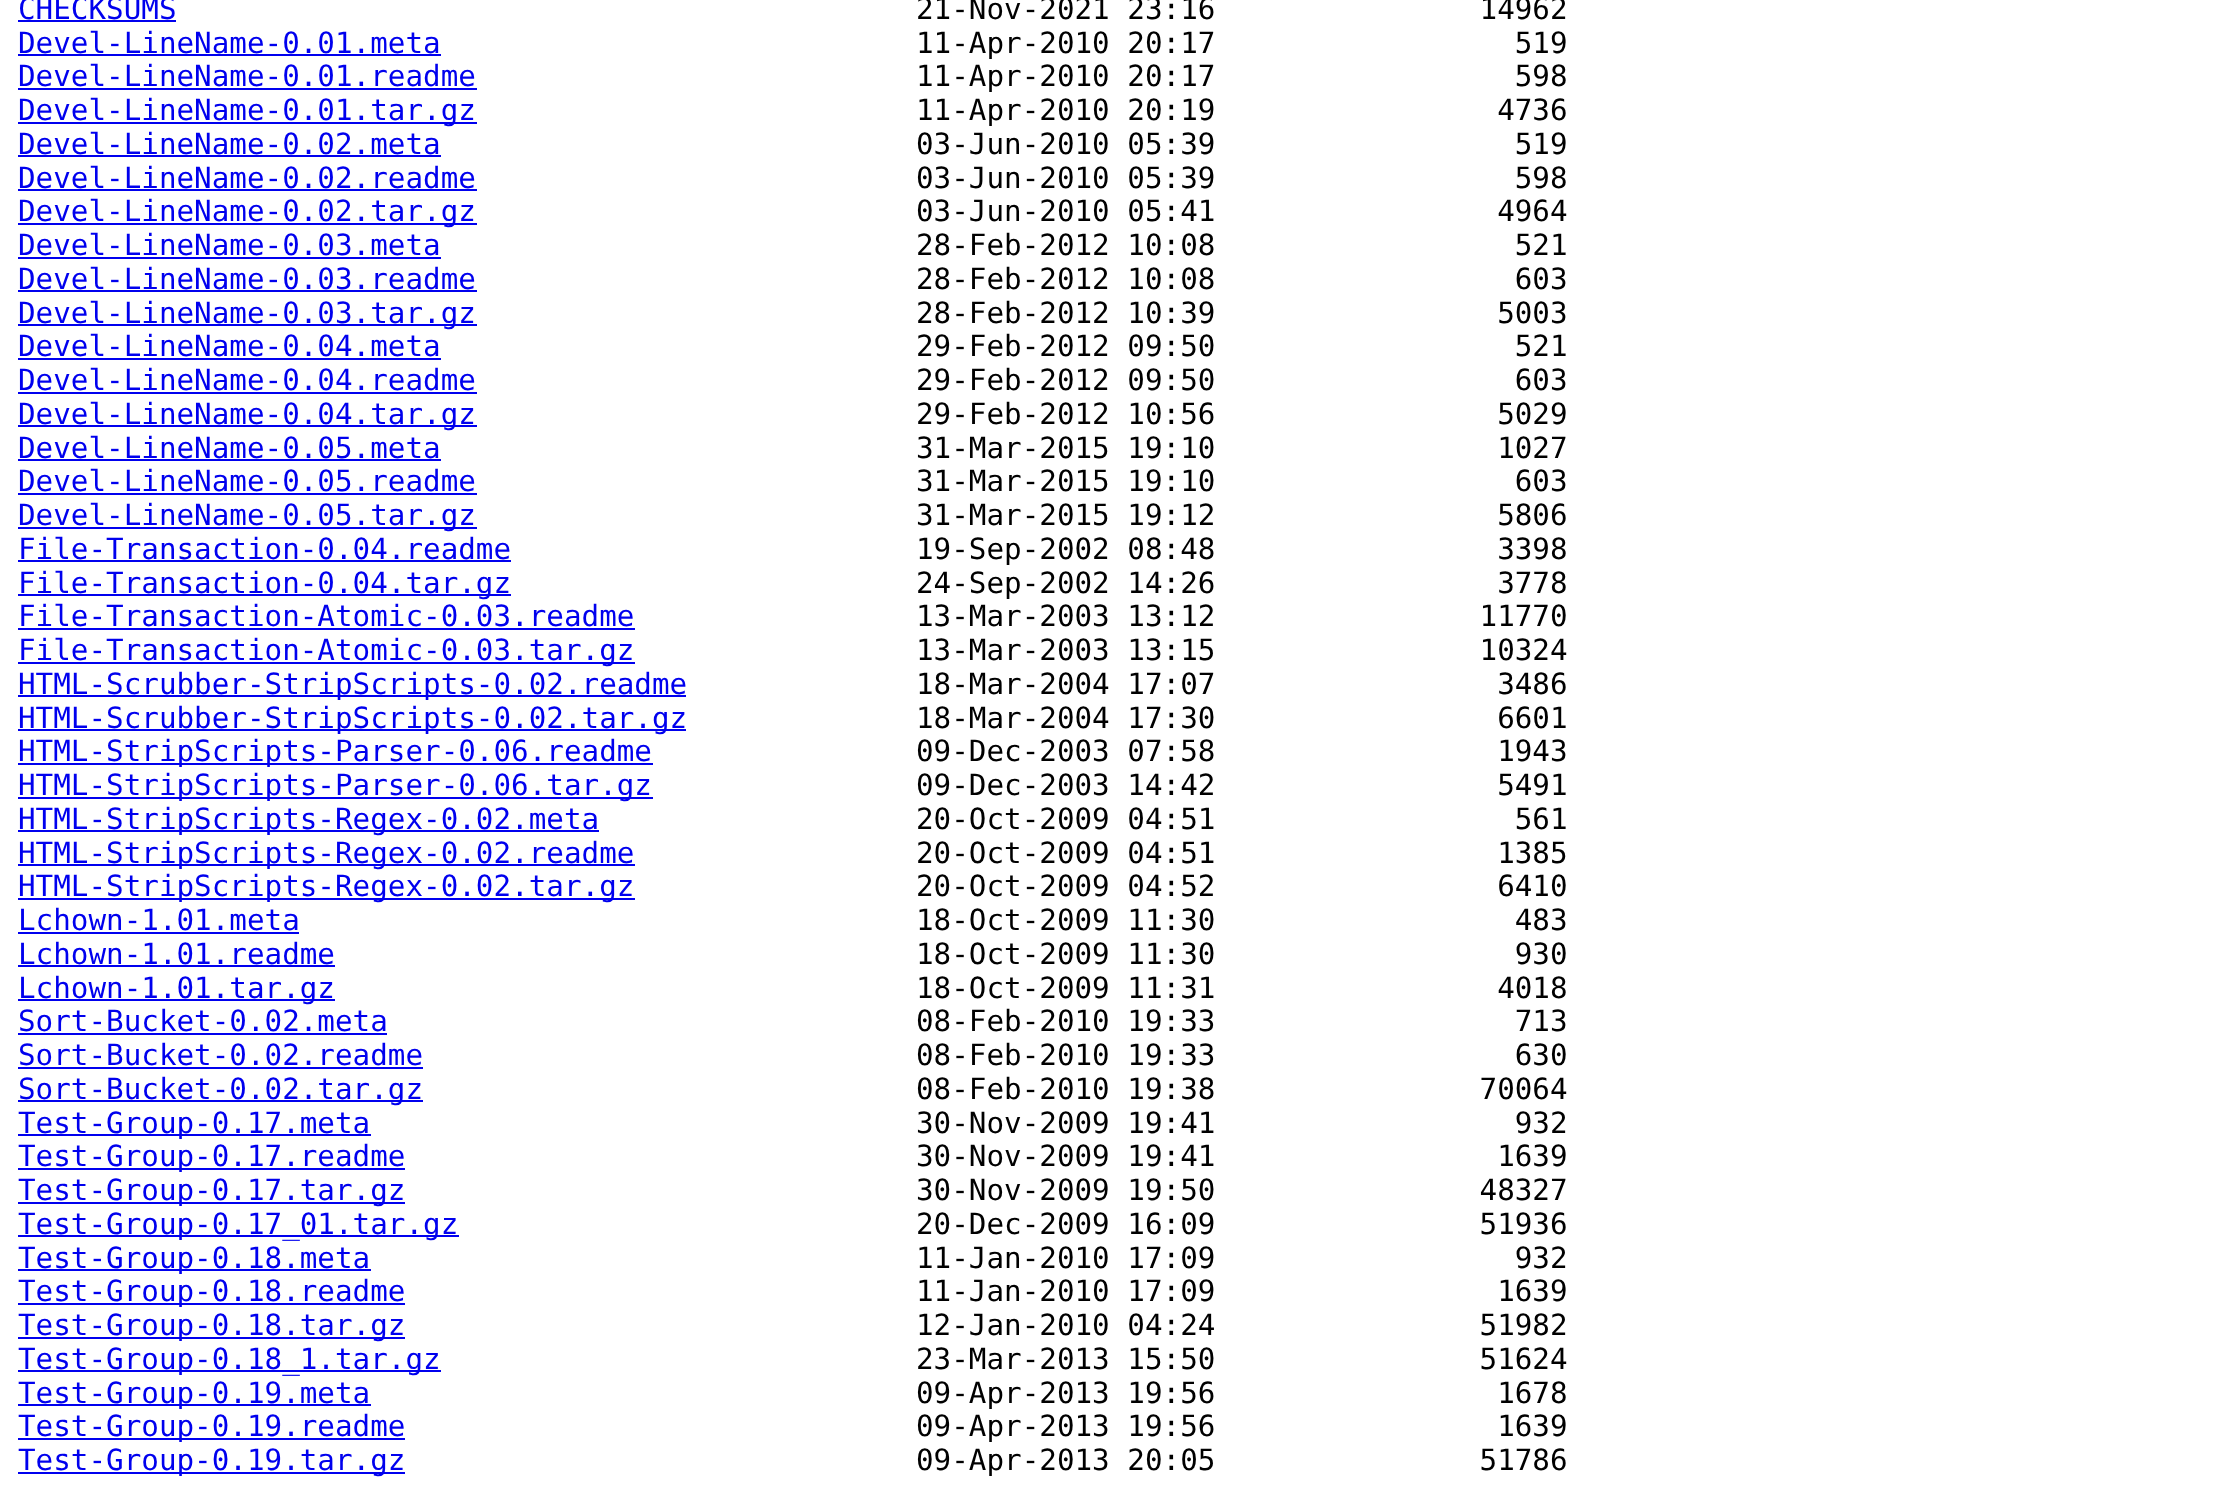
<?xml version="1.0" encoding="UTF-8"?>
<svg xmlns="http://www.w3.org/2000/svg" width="2230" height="1494">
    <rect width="100%" height="100%" fill="#FFFFFF"/>
    <text x="18" y="19" font-family="DejaVu Sans Mono" font-size="29.25" fill="#0000EE">CHECKSUMS</text>
    <rect x="18" y="20" width="158" height="2" fill="#0000EE"/>
    <text x="916" y="19" font-family="DejaVu Sans Mono" font-size="29.25" fill="#000000" xml:space="preserve">21-Nov-2021 23:16               14962</text>
    <text x="18" y="53" font-family="DejaVu Sans Mono" font-size="29.25" fill="#0000EE">Devel-LineName-0.01.meta</text>
    <rect x="18" y="54" width="423" height="2" fill="#0000EE"/>
    <text x="916" y="53" font-family="DejaVu Sans Mono" font-size="29.25" fill="#000000" xml:space="preserve">11-Apr-2010 20:17                 519</text>
    <text x="18" y="86" font-family="DejaVu Sans Mono" font-size="29.25" fill="#0000EE">Devel-LineName-0.01.readme</text>
    <rect x="18" y="88" width="459" height="2" fill="#0000EE"/>
    <text x="916" y="86" font-family="DejaVu Sans Mono" font-size="29.25" fill="#000000" xml:space="preserve">11-Apr-2010 20:17                 598</text>
    <rect x="18" y="122" width="459" height="2" fill="#0000EE"/>
    <text x="18" y="120" font-family="DejaVu Sans Mono" font-size="29.25" fill="#0000EE">Devel-LineName-0.01.tar.gz</text>
    <text x="916" y="120" font-family="DejaVu Sans Mono" font-size="29.25" fill="#000000" xml:space="preserve">11-Apr-2010 20:19                4736</text>
    <text x="18" y="154" font-family="DejaVu Sans Mono" font-size="29.25" fill="#0000EE">Devel-LineName-0.02.meta</text>
    <rect x="18" y="155" width="423" height="2" fill="#0000EE"/>
    <text x="916" y="154" font-family="DejaVu Sans Mono" font-size="29.25" fill="#000000" xml:space="preserve">03-Jun-2010 05:39                 519</text>
    <text x="18" y="188" font-family="DejaVu Sans Mono" font-size="29.25" fill="#0000EE">Devel-LineName-0.02.readme</text>
    <rect x="18" y="189" width="459" height="2" fill="#0000EE"/>
    <text x="916" y="188" font-family="DejaVu Sans Mono" font-size="29.25" fill="#000000" xml:space="preserve">03-Jun-2010 05:39                 598</text>
    <rect x="18" y="223" width="459" height="2" fill="#0000EE"/>
    <text x="18" y="221" font-family="DejaVu Sans Mono" font-size="29.25" fill="#0000EE">Devel-LineName-0.02.tar.gz</text>
    <text x="916" y="221" font-family="DejaVu Sans Mono" font-size="29.25" fill="#000000" xml:space="preserve">03-Jun-2010 05:41                4964</text>
    <text x="18" y="255" font-family="DejaVu Sans Mono" font-size="29.25" fill="#0000EE">Devel-LineName-0.03.meta</text>
    <rect x="18" y="257" width="423" height="2" fill="#0000EE"/>
    <text x="916" y="255" font-family="DejaVu Sans Mono" font-size="29.25" fill="#000000" xml:space="preserve">28-Feb-2012 10:08                 521</text>
    <text x="18" y="289" font-family="DejaVu Sans Mono" font-size="29.25" fill="#0000EE">Devel-LineName-0.03.readme</text>
    <rect x="18" y="290" width="459" height="2" fill="#0000EE"/>
    <text x="916" y="289" font-family="DejaVu Sans Mono" font-size="29.25" fill="#000000" xml:space="preserve">28-Feb-2012 10:08                 603</text>
    <rect x="18" y="324" width="459" height="2" fill="#0000EE"/>
    <text x="18" y="323" font-family="DejaVu Sans Mono" font-size="29.25" fill="#0000EE">Devel-LineName-0.03.tar.gz</text>
    <text x="916" y="323" font-family="DejaVu Sans Mono" font-size="29.25" fill="#000000" xml:space="preserve">28-Feb-2012 10:39                5003</text>
    <text x="18" y="356" font-family="DejaVu Sans Mono" font-size="29.25" fill="#0000EE">Devel-LineName-0.04.meta</text>
    <rect x="18" y="358" width="423" height="2" fill="#0000EE"/>
    <text x="916" y="356" font-family="DejaVu Sans Mono" font-size="29.25" fill="#000000" xml:space="preserve">29-Feb-2012 09:50                 521</text>
    <text x="18" y="390" font-family="DejaVu Sans Mono" font-size="29.25" fill="#0000EE">Devel-LineName-0.04.readme</text>
    <rect x="18" y="392" width="459" height="2" fill="#0000EE"/>
    <text x="916" y="390" font-family="DejaVu Sans Mono" font-size="29.25" fill="#000000" xml:space="preserve">29-Feb-2012 09:50                 603</text>
    <rect x="18" y="425" width="459" height="2" fill="#0000EE"/>
    <text x="18" y="424" font-family="DejaVu Sans Mono" font-size="29.25" fill="#0000EE">Devel-LineName-0.04.tar.gz</text>
    <text x="916" y="424" font-family="DejaVu Sans Mono" font-size="29.25" fill="#000000" xml:space="preserve">29-Feb-2012 10:56                5029</text>
    <text x="18" y="458" font-family="DejaVu Sans Mono" font-size="29.25" fill="#0000EE">Devel-LineName-0.05.meta</text>
    <rect x="18" y="459" width="423" height="2" fill="#0000EE"/>
    <text x="916" y="458" font-family="DejaVu Sans Mono" font-size="29.25" fill="#000000" xml:space="preserve">31-Mar-2015 19:10                1027</text>
    <text x="18" y="491" font-family="DejaVu Sans Mono" font-size="29.25" fill="#0000EE">Devel-LineName-0.05.readme</text>
    <rect x="18" y="493" width="459" height="2" fill="#0000EE"/>
    <text x="916" y="491" font-family="DejaVu Sans Mono" font-size="29.25" fill="#000000" xml:space="preserve">31-Mar-2015 19:10                 603</text>
    <rect x="18" y="527" width="459" height="2" fill="#0000EE"/>
    <text x="18" y="525" font-family="DejaVu Sans Mono" font-size="29.25" fill="#0000EE">Devel-LineName-0.05.tar.gz</text>
    <text x="916" y="525" font-family="DejaVu Sans Mono" font-size="29.25" fill="#000000" xml:space="preserve">31-Mar-2015 19:12                5806</text>
    <text x="18" y="559" font-family="DejaVu Sans Mono" font-size="29.25" fill="#0000EE">File-Transaction-0.04.readme</text>
    <rect x="18" y="560" width="493" height="2" fill="#0000EE"/>
    <text x="916" y="559" font-family="DejaVu Sans Mono" font-size="29.25" fill="#000000" xml:space="preserve">19-Sep-2002 08:48                3398</text>
    <rect x="18" y="594" width="493" height="2" fill="#0000EE"/>
    <text x="18" y="593" font-family="DejaVu Sans Mono" font-size="29.25" fill="#0000EE">File-Transaction-0.04.tar.gz</text>
    <text x="916" y="593" font-family="DejaVu Sans Mono" font-size="29.25" fill="#000000" xml:space="preserve">24-Sep-2002 14:26                3778</text>
    <text x="18" y="626" font-family="DejaVu Sans Mono" font-size="29.25" fill="#0000EE">File-Transaction-Atomic-0.03.readme</text>
    <rect x="18" y="628" width="617" height="2" fill="#0000EE"/>
    <text x="916" y="626" font-family="DejaVu Sans Mono" font-size="29.25" fill="#000000" xml:space="preserve">13-Mar-2003 13:12               11770</text>
    <rect x="18" y="662" width="617" height="2" fill="#0000EE"/>
    <text x="18" y="660" font-family="DejaVu Sans Mono" font-size="29.25" fill="#0000EE">File-Transaction-Atomic-0.03.tar.gz</text>
    <text x="916" y="660" font-family="DejaVu Sans Mono" font-size="29.25" fill="#000000" xml:space="preserve">13-Mar-2003 13:15               10324</text>
    <rect x="18" y="695" width="668" height="2" fill="#0000EE"/>
    <text x="18" y="694" font-family="DejaVu Sans Mono" font-size="29.25" fill="#0000EE">HTML-Scrubber-StripScripts-0.02.readme</text>
    <text x="916" y="694" font-family="DejaVu Sans Mono" font-size="29.25" fill="#000000" xml:space="preserve">18-Mar-2004 17:07                3486</text>
    <rect x="18" y="729" width="668" height="2" fill="#0000EE"/>
    <text x="18" y="728" font-family="DejaVu Sans Mono" font-size="29.25" fill="#0000EE">HTML-Scrubber-StripScripts-0.02.tar.gz</text>
    <text x="916" y="728" font-family="DejaVu Sans Mono" font-size="29.25" fill="#000000" xml:space="preserve">18-Mar-2004 17:30                6601</text>
    <rect x="18" y="763" width="635" height="2" fill="#0000EE"/>
    <text x="18" y="761" font-family="DejaVu Sans Mono" font-size="29.25" fill="#0000EE">HTML-StripScripts-Parser-0.06.readme</text>
    <text x="916" y="761" font-family="DejaVu Sans Mono" font-size="29.25" fill="#000000" xml:space="preserve">09-Dec-2003 07:58                1943</text>
    <rect x="18" y="797" width="635" height="2" fill="#0000EE"/>
    <text x="18" y="795" font-family="DejaVu Sans Mono" font-size="29.25" fill="#0000EE">HTML-StripScripts-Parser-0.06.tar.gz</text>
    <text x="916" y="795" font-family="DejaVu Sans Mono" font-size="29.25" fill="#000000" xml:space="preserve">09-Dec-2003 14:42                5491</text>
    <rect x="18" y="830" width="581" height="2" fill="#0000EE"/>
    <text x="18" y="829" font-family="DejaVu Sans Mono" font-size="29.25" fill="#0000EE">HTML-StripScripts-Regex-0.02.meta</text>
    <text x="916" y="829" font-family="DejaVu Sans Mono" font-size="29.25" fill="#000000" xml:space="preserve">20-Oct-2009 04:51                 561</text>
    <rect x="18" y="864" width="617" height="2" fill="#0000EE"/>
    <text x="18" y="863" font-family="DejaVu Sans Mono" font-size="29.25" fill="#0000EE">HTML-StripScripts-Regex-0.02.readme</text>
    <text x="916" y="863" font-family="DejaVu Sans Mono" font-size="29.25" fill="#000000" xml:space="preserve">20-Oct-2009 04:51                1385</text>
    <rect x="18" y="898" width="617" height="2" fill="#0000EE"/>
    <text x="18" y="896" font-family="DejaVu Sans Mono" font-size="29.25" fill="#0000EE">HTML-StripScripts-Regex-0.02.tar.gz</text>
    <text x="916" y="896" font-family="DejaVu Sans Mono" font-size="29.25" fill="#000000" xml:space="preserve">20-Oct-2009 04:52                6410</text>
    <text x="18" y="930" font-family="DejaVu Sans Mono" font-size="29.25" fill="#0000EE">Lchown-1.01.meta</text>
    <rect x="18" y="932" width="281" height="2" fill="#0000EE"/>
    <text x="916" y="930" font-family="DejaVu Sans Mono" font-size="29.25" fill="#000000" xml:space="preserve">18-Oct-2009 11:30                 483</text>
    <text x="18" y="964" font-family="DejaVu Sans Mono" font-size="29.25" fill="#0000EE">Lchown-1.01.readme</text>
    <rect x="18" y="965" width="317" height="2" fill="#0000EE"/>
    <text x="916" y="964" font-family="DejaVu Sans Mono" font-size="29.25" fill="#000000" xml:space="preserve">18-Oct-2009 11:30                 930</text>
    <rect x="18" y="999" width="317" height="2" fill="#0000EE"/>
    <text x="18" y="998" font-family="DejaVu Sans Mono" font-size="29.25" fill="#0000EE">Lchown-1.01.tar.gz</text>
    <text x="916" y="998" font-family="DejaVu Sans Mono" font-size="29.25" fill="#000000" xml:space="preserve">18-Oct-2009 11:31                4018</text>
    <text x="18" y="1031" font-family="DejaVu Sans Mono" font-size="29.25" fill="#0000EE">Sort-Bucket-0.02.meta</text>
    <rect x="18" y="1033" width="369" height="2" fill="#0000EE"/>
    <text x="916" y="1031" font-family="DejaVu Sans Mono" font-size="29.25" fill="#000000" xml:space="preserve">08-Feb-2010 19:33                 713</text>
    <text x="18" y="1065" font-family="DejaVu Sans Mono" font-size="29.25" fill="#0000EE">Sort-Bucket-0.02.readme</text>
    <rect x="18" y="1067" width="405" height="2" fill="#0000EE"/>
    <text x="916" y="1065" font-family="DejaVu Sans Mono" font-size="29.25" fill="#000000" xml:space="preserve">08-Feb-2010 19:33                 630</text>
    <rect x="18" y="1100" width="405" height="2" fill="#0000EE"/>
    <text x="18" y="1099" font-family="DejaVu Sans Mono" font-size="29.25" fill="#0000EE">Sort-Bucket-0.02.tar.gz</text>
    <text x="916" y="1099" font-family="DejaVu Sans Mono" font-size="29.25" fill="#000000" xml:space="preserve">08-Feb-2010 19:38               70064</text>
    <rect x="18" y="1134" width="353" height="2" fill="#0000EE"/>
    <text x="18" y="1133" font-family="DejaVu Sans Mono" font-size="29.25" fill="#0000EE">Test-Group-0.17.meta</text>
    <text x="916" y="1133" font-family="DejaVu Sans Mono" font-size="29.25" fill="#000000" xml:space="preserve">30-Nov-2009 19:41                 932</text>
    <rect x="18" y="1168" width="387" height="2" fill="#0000EE"/>
    <text x="18" y="1166" font-family="DejaVu Sans Mono" font-size="29.25" fill="#0000EE">Test-Group-0.17.readme</text>
    <text x="916" y="1166" font-family="DejaVu Sans Mono" font-size="29.25" fill="#000000" xml:space="preserve">30-Nov-2009 19:41                1639</text>
    <rect x="18" y="1202" width="387" height="2" fill="#0000EE"/>
    <text x="18" y="1200" font-family="DejaVu Sans Mono" font-size="29.25" fill="#0000EE">Test-Group-0.17.tar.gz</text>
    <text x="916" y="1200" font-family="DejaVu Sans Mono" font-size="29.25" fill="#000000" xml:space="preserve">30-Nov-2009 19:50               48327</text>
    <rect x="18" y="1235" width="441" height="2" fill="#0000EE"/>
    <text x="18" y="1234" font-family="DejaVu Sans Mono" font-size="29.25" fill="#0000EE">Test-Group-0.17_01.tar.gz</text>
    <text x="916" y="1234" font-family="DejaVu Sans Mono" font-size="29.25" fill="#000000" xml:space="preserve">20-Dec-2009 16:09               51936</text>
    <rect x="18" y="1269" width="353" height="2" fill="#0000EE"/>
    <text x="18" y="1268" font-family="DejaVu Sans Mono" font-size="29.25" fill="#0000EE">Test-Group-0.18.meta</text>
    <text x="916" y="1268" font-family="DejaVu Sans Mono" font-size="29.25" fill="#000000" xml:space="preserve">11-Jan-2010 17:09                 932</text>
    <rect x="18" y="1303" width="387" height="2" fill="#0000EE"/>
    <text x="18" y="1301" font-family="DejaVu Sans Mono" font-size="29.25" fill="#0000EE">Test-Group-0.18.readme</text>
    <text x="916" y="1301" font-family="DejaVu Sans Mono" font-size="29.25" fill="#000000" xml:space="preserve">11-Jan-2010 17:09                1639</text>
    <rect x="18" y="1337" width="387" height="2" fill="#0000EE"/>
    <text x="18" y="1335" font-family="DejaVu Sans Mono" font-size="29.25" fill="#0000EE">Test-Group-0.18.tar.gz</text>
    <text x="916" y="1335" font-family="DejaVu Sans Mono" font-size="29.25" fill="#000000" xml:space="preserve">12-Jan-2010 04:24               51982</text>
    <rect x="18" y="1370" width="423" height="2" fill="#0000EE"/>
    <text x="18" y="1369" font-family="DejaVu Sans Mono" font-size="29.25" fill="#0000EE">Test-Group-0.18_1.tar.gz</text>
    <text x="916" y="1369" font-family="DejaVu Sans Mono" font-size="29.25" fill="#000000" xml:space="preserve">23-Mar-2013 15:50               51624</text>
    <rect x="18" y="1404" width="353" height="2" fill="#0000EE"/>
    <text x="18" y="1403" font-family="DejaVu Sans Mono" font-size="29.25" fill="#0000EE">Test-Group-0.19.meta</text>
    <text x="916" y="1403" font-family="DejaVu Sans Mono" font-size="29.25" fill="#000000" xml:space="preserve">09-Apr-2013 19:56                1678</text>
    <rect x="18" y="1438" width="387" height="2" fill="#0000EE"/>
    <text x="18" y="1436" font-family="DejaVu Sans Mono" font-size="29.25" fill="#0000EE">Test-Group-0.19.readme</text>
    <text x="916" y="1436" font-family="DejaVu Sans Mono" font-size="29.25" fill="#000000" xml:space="preserve">09-Apr-2013 19:56                1639</text>
    <rect x="18" y="1472" width="387" height="2" fill="#0000EE"/>
    <text x="18" y="1470" font-family="DejaVu Sans Mono" font-size="29.25" fill="#0000EE">Test-Group-0.19.tar.gz</text>
    <text x="916" y="1470" font-family="DejaVu Sans Mono" font-size="29.25" fill="#000000" xml:space="preserve">09-Apr-2013 20:05               51786</text>
</svg>
